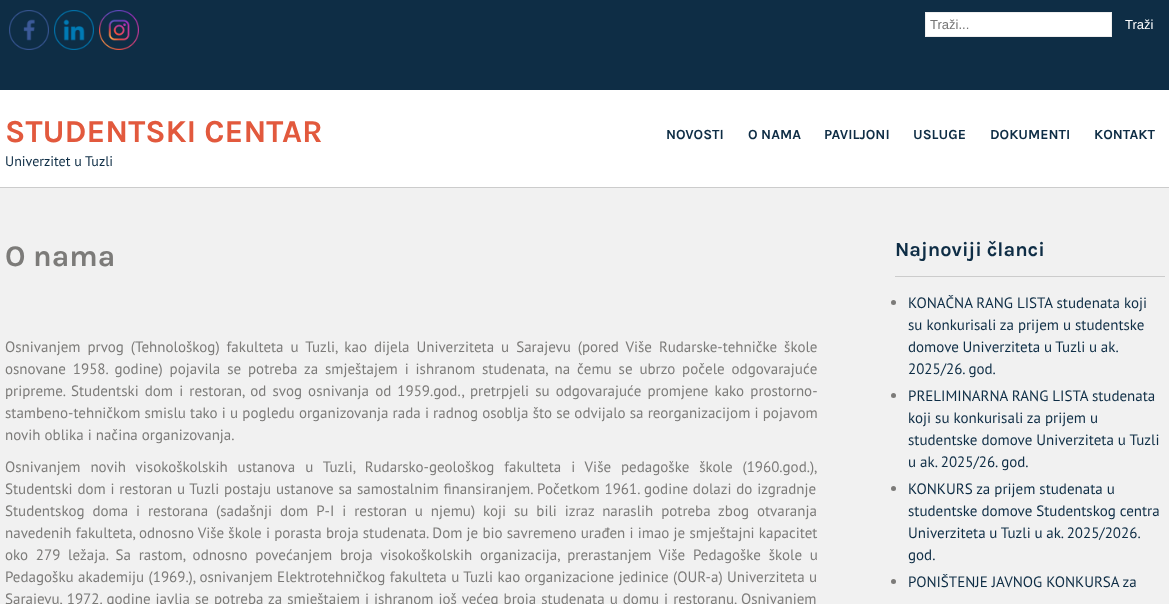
<?xml version="1.0" encoding="UTF-8"?>
<svg xmlns="http://www.w3.org/2000/svg" width="1169" height="604">
    <rect width="100%" height="100%" fill="#F1F1F1"/>
    <rect x="0" y="0" width="1169" height="90" fill="#0E2D45"/>
    <image x="9" y="10" width="40" height="40" href="img_01.png"/>
    <image x="54" y="10" width="40" height="40" href="img_02.png"/>
    <image x="99" y="10" width="40" height="40" href="img_03.png"/>
    <rect x="925.5" y="12.5" width="186" height="24" fill="#FFFFFF" stroke="#EEEEEE"/>
    <text x="930" y="29" font-family="Liberation Sans" font-size="13" fill="#757575">Traži...</text>
    <text x="1125" y="29" font-family="Liberation Sans" font-size="13" fill="#FFFFFF">Traži</text>
    <rect x="0" y="90" width="1169" height="97" fill="#FFFFFF"/>
    <rect x="0" y="187" width="1169" height="1" fill="#CCCCCC"/>
    <text x="5" y="142" font-family="Karla" font-size="32" font-weight="700" fill="#E2593D">STUDENTSKI CENTAR</text>
    <text x="5" y="166" font-family="PT Sans" font-size="14" fill="#0E2D45">Univerzitet u Tuzli</text>
    <text x="666" y="139" font-family="Karla" font-size="14" font-weight="700" fill="#0E2D45">NOVOSTI</text>
    <text x="748" y="139" font-family="Karla" font-size="14" font-weight="700" fill="#0E2D45">O NAMA</text>
    <text x="824" y="139" font-family="Karla" font-size="14" font-weight="700" fill="#0E2D45">PAVILJONI</text>
    <text x="913" y="139" font-family="Karla" font-size="14" font-weight="700" fill="#0E2D45">USLUGE</text>
    <text x="990" y="139" font-family="Karla" font-size="14" font-weight="700" fill="#0E2D45">DOKUMENTI</text>
    <text x="1094" y="139" font-family="Karla" font-size="14" font-weight="700" fill="#0E2D45">KONTAKT</text>
    <text x="5" y="266" font-family="Karla" font-size="30" font-weight="700" fill="#7C7B79">O nama</text>
    <text font-family="PT Sans" font-size="15" fill="#7C7B79">
        <tspan x="5" y="352" word-spacing="3">Osnivanjem prvog (Tehnološkog) fakulteta u Tuzli, kao dijela Univerziteta u Sarajevu (pored Više Rudarske-tehničke škole</tspan>
        <tspan x="5" y="374" word-spacing="2.9">osnovane 1958. godine) pojavila se potreba za smještajem i ishranom studenata, na čemu se ubrzo počele odgovarajuće</tspan>
        <tspan x="5" y="396" word-spacing="2.1">pripreme. Studentski dom i restoran, od svog osnivanja od 1959.god., pretrpjeli su odgovarajuće promjene kako prostorno-</tspan>
        <tspan x="5" y="418" word-spacing="0.2">stambeno-tehničkom smislu tako i u pogledu organizovanja rada i radnog osoblja što se odvijalo sa reorganizacijom i pojavom</tspan>
        <tspan x="5" y="440">novih oblika i načina organizovanja.</tspan>
    </text>
    <text font-family="PT Sans" font-size="15" fill="#7C7B79">
        <tspan x="5" y="472" word-spacing="5.9">Osnivanjem novih visokoškolskih ustanova u Tuzli, Rudarsko-geološkog fakulteta i Više pedagoške škole (1960.god.),</tspan>
        <tspan x="5" y="494" word-spacing="0.8">Studentski dom i restoran u Tuzli postaju ustanove sa samostalnim finansiranjem. Početkom 1961. godine dolazi do izgradnje</tspan>
        <tspan x="5" y="516" word-spacing="3.9">Studentskog doma i restorana (sadašnji dom P-I i restoran u njemu) koji su bili izraz naraslih potreba zbog otvaranja</tspan>
        <tspan x="5" y="538" word-spacing="0.2">navedenih fakulteta, odnosno Više škole i porasta broja studenata. Dom je bio savremeno urađen i imao je smještajni kapacitet</tspan>
        <tspan x="5" y="560" word-spacing="3.75">oko 279 ležaja. Sa rastom, odnosno povećanjem broja visokoškolskih organizacija, prerastanjem Više Pedagoške škole u</tspan>
        <tspan x="5" y="582" word-spacing="0.4">Pedagošku akademiju (1969.), osnivanjem Elektrotehničkog fakulteta u Tuzli kao organizacione jedinice (OUR-a) Univerziteta u</tspan>
        <tspan x="5" y="604" word-spacing="1">Sarajevu, 1972. godine javlja se potreba za smještajem i ishranom još većeg broja studenata u domu i restoranu. Osnivanjem</tspan>
    </text>
    <rect x="895" y="276" width="270" height="1" fill="#CCCCCC"/>
    <text x="895" y="256" font-family="Karla" font-size="20" font-weight="700" fill="#0E2D45">Najnoviji članci</text>
    <circle cx="893.5" cy="302.5" r="2.5" fill="#7C7B79"/>
    <text font-family="PT Sans" font-size="15" fill="#0E2D45">
        <tspan x="908" y="308">KONAČNA RANG LISTA studenata koji</tspan>
        <tspan x="908" y="330">su konkurisali za prijem u studentske</tspan>
        <tspan x="908" y="352" word-spacing="-0.25">domove Univerziteta u Tuzli u ak.</tspan>
        <tspan x="908" y="374">2025/26. god.</tspan>
    </text>
    <circle cx="893.5" cy="395.5" r="2.5" fill="#7C7B79"/>
    <text font-family="PT Sans" font-size="15" fill="#0E2D45">
        <tspan x="908" y="401">PRELIMINARNA RANG LISTA studenata</tspan>
        <tspan x="908" y="423">koji su konkurisali za prijem u</tspan>
        <tspan x="908" y="445">studentske domove Univerziteta u Tuzli</tspan>
        <tspan x="908" y="467">u ak. 2025/26. god.</tspan>
    </text>
    <circle cx="893.5" cy="488.5" r="2.5" fill="#7C7B79"/>
    <text font-family="PT Sans" font-size="15" fill="#0E2D45">
        <tspan x="908" y="494">KONKURS za prijem studenata u</tspan>
        <tspan x="908" y="516">studentske domove Studentskog centra</tspan>
        <tspan x="908" y="538" word-spacing="-0.25">Univerziteta u Tuzli u ak. 2025/2026.</tspan>
        <tspan x="908" y="560">god.</tspan>
    </text>
    <circle cx="893.5" cy="581.5" r="2.5" fill="#7C7B79"/>
    <text x="908" y="587" font-family="PT Sans" font-size="15" fill="#0E2D45">PONIŠTENJE JAVNOG KONKURSA za</text>
</svg>
